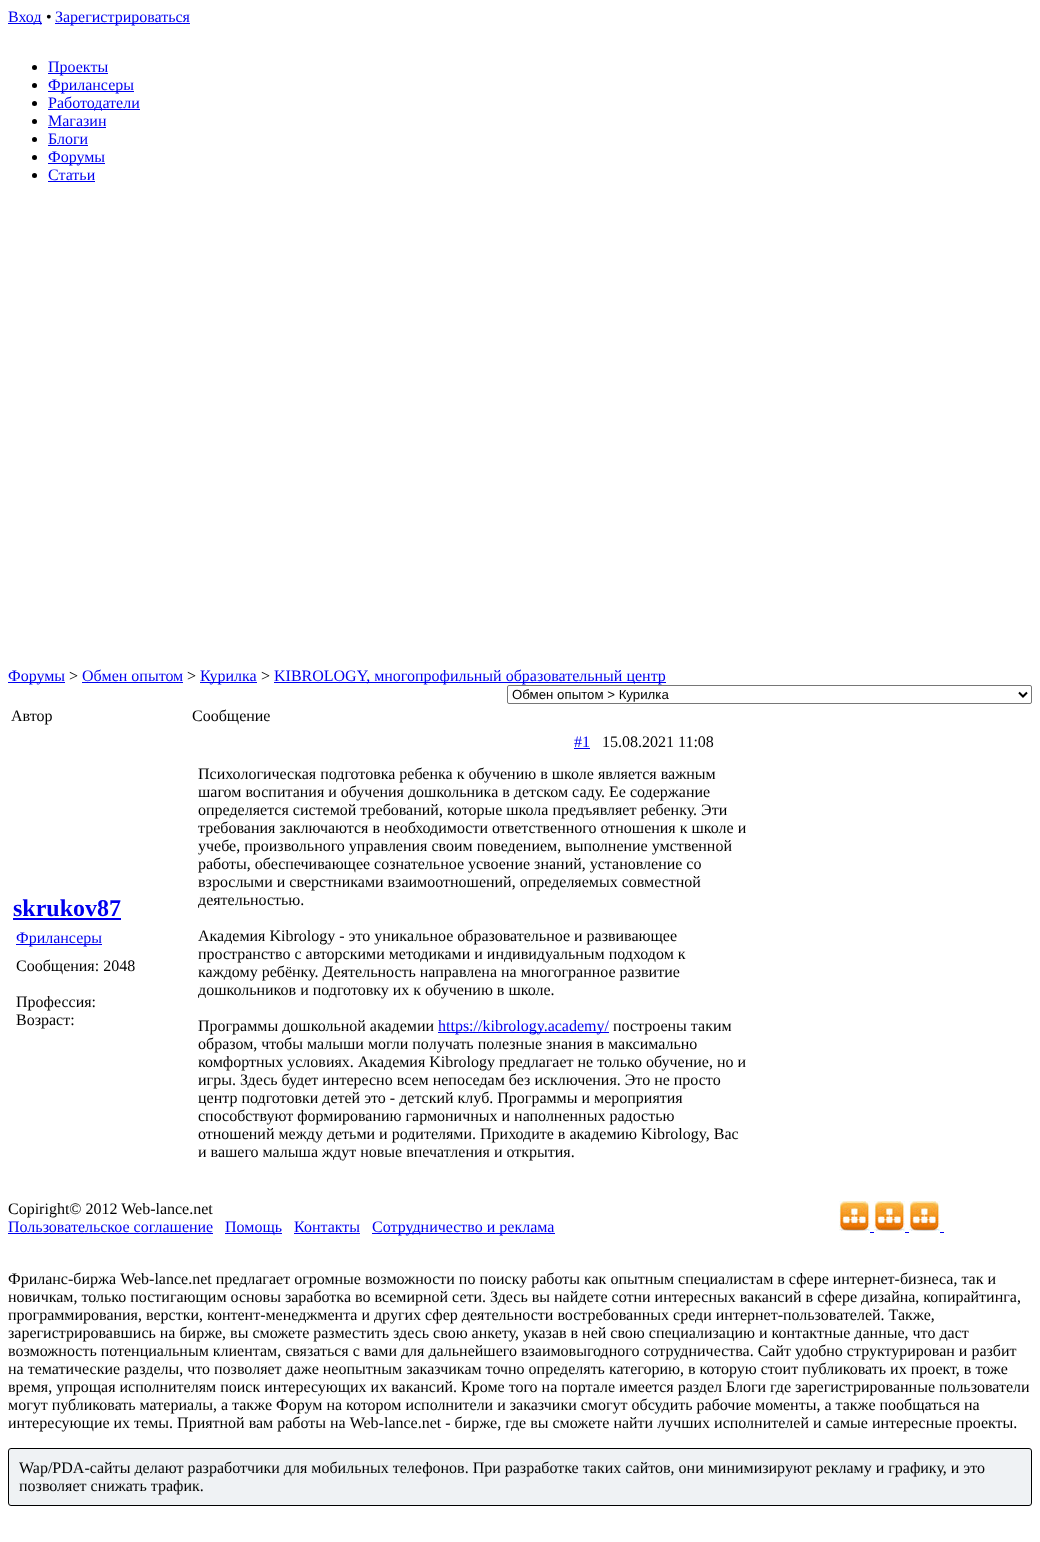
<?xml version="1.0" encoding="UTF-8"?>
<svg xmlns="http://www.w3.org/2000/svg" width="1040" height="1542">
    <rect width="100%" height="100%" fill="#FFFFFF"/>
    <rect x="8" y="23" width="34" height="1" fill="#0000EE"/>
    <text x="8" y="22" font-family="Liberation Serif" font-size="16" fill="#0000EE">Вход</text>
    <text x="46" y="22" font-family="Liberation Serif" font-size="16" fill="#000000">•</text>
    <rect x="55" y="23" width="135" height="1" fill="#0000EE"/>
    <text x="55" y="22" font-family="Liberation Serif" font-size="16" fill="#0000EE">Зарегистрироваться</text>
    <circle cx="34.5" cy="67.5" r="2.5" fill="#000000"/>
    <rect x="48" y="73" width="60" height="1" fill="#0000EE"/>
    <text x="48" y="72" font-family="Liberation Serif" font-size="16" fill="#0000EE">Проекты</text>
    <circle cx="34.5" cy="85.5" r="2.5" fill="#000000"/>
    <rect x="48" y="91" width="86" height="1" fill="#0000EE"/>
    <text x="48" y="90" font-family="Liberation Serif" font-size="16" fill="#0000EE">Фрилансеры</text>
    <circle cx="34.5" cy="103.5" r="2.5" fill="#000000"/>
    <rect x="48" y="109" width="92" height="1" fill="#0000EE"/>
    <text x="48" y="108" font-family="Liberation Serif" font-size="16" fill="#0000EE">Работодатели</text>
    <circle cx="34.5" cy="121.5" r="2.5" fill="#000000"/>
    <text x="48" y="126" font-family="Liberation Serif" font-size="16" fill="#0000EE">Магазин</text>
    <rect x="48" y="127" width="58" height="1" fill="#0000EE"/>
    <circle cx="34.5" cy="139.5" r="2.5" fill="#000000"/>
    <text x="48" y="144" font-family="Liberation Serif" font-size="16" fill="#0000EE">Блоги</text>
    <rect x="48" y="145" width="40" height="1" fill="#0000EE"/>
    <circle cx="34.5" cy="157.5" r="2.5" fill="#000000"/>
    <rect x="48" y="163" width="57" height="1" fill="#0000EE"/>
    <text x="48" y="162" font-family="Liberation Serif" font-size="16" fill="#0000EE">Форумы</text>
    <circle cx="34.5" cy="175.5" r="2.5" fill="#000000"/>
    <text x="48" y="180" font-family="Liberation Serif" font-size="16" fill="#0000EE">Статьи</text>
    <rect x="48" y="181" width="47" height="1" fill="#0000EE"/>
    <rect x="8" y="682" width="57" height="1" fill="#0000EE"/>
    <text x="8" y="681" font-family="Liberation Serif" font-size="16" fill="#0000EE">Форумы</text>
    <text x="69" y="681" font-family="Liberation Serif" font-size="16" fill="#000000">&gt;</text>
    <text x="82" y="681" font-family="Liberation Serif" font-size="16" fill="#0000EE">Обмен опытом</text>
    <rect x="82" y="682" width="101" height="1" fill="#0000EE"/>
    <text x="187" y="681" font-family="Liberation Serif" font-size="16" fill="#000000">&gt;</text>
    <rect x="200" y="682" width="57" height="1" fill="#0000EE"/>
    <text x="200" y="681" font-family="Liberation Serif" font-size="16" fill="#0000EE">Курилка</text>
    <text x="261" y="681" font-family="Liberation Serif" font-size="16" fill="#000000">&gt;</text>
    <rect x="274" y="682" width="392" height="1" fill="#0000EE"/>
    <text x="274" y="681" font-family="Liberation Serif" font-size="16" fill="#0000EE">KIBROLOGY, многопрофильный образовательный центр</text>
    <rect x="507.5" y="685.5" width="524" height="18" rx="1.5" fill="none" stroke="#767676"/>
    <path d="M 1019 692.5 L 1023 696.5 L 1027 692.5" fill="none" stroke="#000000" stroke-width="2"/>
    <text x="512" y="699" font-family="Liberation Sans" font-size="13.25" fill="#000000">Обмен опытом &gt; Курилка</text>
    <text x="11" y="721" font-family="Liberation Serif" font-size="16" fill="#000000">Автор</text>
    <text x="192" y="721" font-family="Liberation Serif" font-size="16" fill="#000000">Сообщение</text>
    <text x="574" y="747" font-family="Liberation Serif" font-size="16" fill="#0000EE">#1</text>
    <rect x="574" y="748" width="16" height="1" fill="#0000EE"/>
    <text x="602" y="747" font-family="Liberation Serif" font-size="16" fill="#000000">15.08.2021 11:08</text>
    <text x="13" y="916" font-family="Liberation Serif" font-size="24" font-weight="700" fill="#0000EE">skrukov87</text>
    <rect x="13" y="918" width="108" height="2" fill="#0000EE"/>
    <rect x="16" y="944" width="86" height="1" fill="#0000EE"/>
    <text x="16" y="943" font-family="Liberation Serif" font-size="16" fill="#0000EE">Фрилансеры</text>
    <text x="16" y="971" font-family="Liberation Serif" font-size="16" fill="#000000">Сообщения: 2048</text>
    <text font-family="Liberation Serif" font-size="16" fill="#000000">
        <tspan x="16" y="1007">Профессия:</tspan>
        <tspan x="16" y="1025">Возраст:</tspan>
    </text>
    <text font-family="Liberation Serif" font-size="16" fill="#000000">
        <tspan x="198" y="779">Психологическая подготовка ребенка к обучению в школе является важным</tspan>
        <tspan x="198" y="797">шагом воспитания и обучения дошкольника в детском саду. Ее содержание</tspan>
        <tspan x="198" y="815">определяется системой требований, которые школа предъявляет ребенку. Эти</tspan>
        <tspan x="198" y="833">требования заключаются в необходимости ответственного отношения к школе и</tspan>
        <tspan x="198" y="851">учебе, произвольного управления своим поведением, выполнение умственной</tspan>
        <tspan x="198" y="869">работы, обеспечивающее сознательное усвоение знаний, установление со</tspan>
        <tspan x="198" y="887">взрослыми и сверстниками взаимоотношений, определяемых совместной</tspan>
        <tspan x="198" y="905">деятельностью.</tspan>
    </text>
    <text font-family="Liberation Serif" font-size="16" fill="#000000">
        <tspan x="198" y="941">Академия Kibrology - это уникальное образовательное и развивающее</tspan>
        <tspan x="198" y="959">пространство с авторскими методиками и индивидуальным подходом к</tspan>
        <tspan x="198" y="977">каждому ребёнку. Деятельность направлена на многогранное развитие</tspan>
        <tspan x="198" y="995">дошкольников и подготовку их к обучению в школе.</tspan>
    </text>
    <text x="198" y="1031" font-family="Liberation Serif" font-size="16" fill="#000000">Программы дошкольной академии</text>
    <rect x="438" y="1032" width="171" height="1" fill="#0000EE"/>
    <text x="438" y="1031" font-family="Liberation Serif" font-size="16" fill="#0000EE">https://kibrology.academy/</text>
    <text x="613" y="1031" font-family="Liberation Serif" font-size="16" fill="#000000">построены таким</text>
    <text font-family="Liberation Serif" font-size="16" fill="#000000">
        <tspan x="198" y="1049">образом, чтобы малыши могли получать полезные знания в максимально</tspan>
        <tspan x="198" y="1067">комфортных условиях. Академия Kibrology предлагает не только обучение, но и</tspan>
        <tspan x="198" y="1085">игры. Здесь будет интересно всем непоседам без исключения. Это не просто</tspan>
        <tspan x="198" y="1103">центр подготовки детей это - детский клуб. Программы и мероприятия</tspan>
        <tspan x="198" y="1121">способствуют формированию гармоничных и наполненных радостью</tspan>
        <tspan x="198" y="1139">отношений между детьми и родителями. Приходите в академию Kibrology, Вас</tspan>
        <tspan x="198" y="1157">и вашего малыша ждут новые впечатления и открытия.</tspan>
    </text>
    <text x="8" y="1214" font-family="Liberation Serif" font-size="16" fill="#000000">Copiright© 2012 Web-lance.net</text>
    <text x="8" y="1232" font-family="Liberation Serif" font-size="16" fill="#0000EE">Пользовательское соглашение</text>
    <rect x="8" y="1233" width="205" height="1" fill="#0000EE"/>
    <rect x="225" y="1233" width="57" height="1" fill="#0000EE"/>
    <text x="225" y="1232" font-family="Liberation Serif" font-size="16" fill="#0000EE">Помощь</text>
    <text x="294" y="1232" font-family="Liberation Serif" font-size="16" fill="#0000EE">Контакты</text>
    <rect x="294" y="1233" width="66" height="1" fill="#0000EE"/>
    <rect x="372" y="1233" width="183" height="1" fill="#0000EE"/>
    <text x="372" y="1232" font-family="Liberation Serif" font-size="16" fill="#0000EE">Сотрудничество и реклама</text>
    <image x="839" y="1201" width="31" height="30" href="img_01.png"/>
    <image x="874" y="1201" width="31" height="30" href="img_01.png"/>
    <image x="909" y="1201" width="31" height="30" href="img_01.png"/>
    <rect x="870" y="1232" width="4" height="1" fill="#0000EE"/>
    <rect x="905" y="1232" width="4" height="1" fill="#0000EE"/>
    <rect x="940" y="1232" width="4" height="1" fill="#0000EE"/>
    <text font-family="Liberation Serif" font-size="16" fill="#000000">
        <tspan x="8" y="1284">Фриланс-биржа Web-lance.net предлагает огромные возможности по поиску работы как опытным специалистам в сфере интернет-бизнеса, так и</tspan>
        <tspan x="8" y="1302">новичкам, только постигающим основы заработка во всемирной сети. Здесь вы найдете сотни интересных вакансий в сфере дизайна, копирайтинга,</tspan>
        <tspan x="8" y="1320">программирования, верстки, контент-менеджмента и других сфер деятельности востребованных среди интернет-пользователей. Также,</tspan>
        <tspan x="8" y="1338">зарегистрировавшись на бирже, вы сможете разместить здесь свою анкету, указав в ней свою специализацию и контактные данные, что даст</tspan>
        <tspan x="8" y="1356">возможность потенциальным клиентам, связаться с вами для дальнейшего взаимовыгодного сотрудничества. Сайт удобно структурирован и разбит</tspan>
        <tspan x="8" y="1374">на тематические разделы, что позволяет даже неопытным заказчикам точно определять категорию, в которую стоит публиковать их проект, в тоже</tspan>
        <tspan x="8" y="1392">время, упрощая исполнителям поиск интересующих их вакансий. Кроме того на портале имеется раздел Блоги где зарегистрированные пользователи</tspan>
        <tspan x="8" y="1410">могут публиковать материалы, а также Форум на котором исполнители и заказчики смогут обсудить рабочие моменты, а также пообщаться на</tspan>
        <tspan x="8" y="1428">интересующие их темы. Приятной вам работы на Web-lance.net - бирже, где вы сможете найти лучших исполнителей и самые интересные проекты.</tspan>
    </text>
    <rect x="8.5" y="1448.5" width="1023" height="57" rx="2.5" fill="#EFF2F4" stroke="#000000"/>
    <text font-family="Liberation Serif" font-size="16" fill="#000000">
        <tspan x="19" y="1473">Wap/PDA-сайты делают разработчики для мобильных телефонов. При разработке таких сайтов, они минимизируют рекламу и графику, и это</tspan>
        <tspan x="19" y="1491">позволяет снижать трафик.</tspan>
    </text>
</svg>
